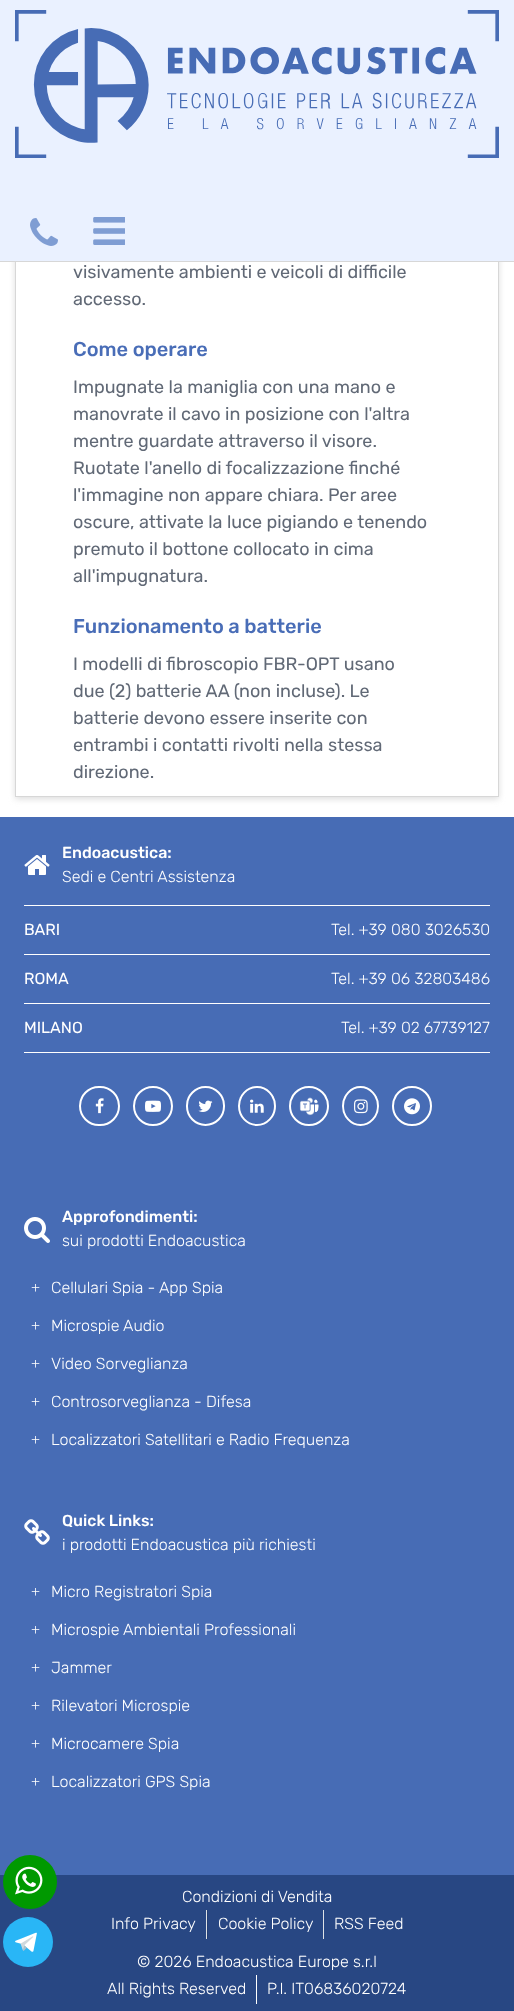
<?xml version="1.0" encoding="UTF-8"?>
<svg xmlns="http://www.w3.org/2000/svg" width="514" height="2011">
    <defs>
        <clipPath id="clip1"><path d="M 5 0 H 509 V 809 H 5 Z M 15 -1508 H 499 V 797 H 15 Z" clip-rule="evenodd"/></clipPath>
        <filter id="blur1" x="-50%" y="-200%" width="200%" height="500%"><feGaussianBlur stdDeviation="3"/></filter>
    </defs>
    <rect width="100%" height="100%" fill="#FFFFFF"/>
    <g clip-path="url(#clip1)">
        <rect x="15" y="-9" width="484" height="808" fill="#D7D7D7" fill-opacity="0.84" filter="url(#blur1)"/>
    </g>
    <rect x="0" y="0" width="514" height="261" fill="#EAF1FF"/>
    <rect x="0" y="261" width="514" height="1" fill="#D7D7D7"/>
    <image x="15" y="10" width="484" height="148" href="img_01.png"/>
    <image x="30" y="218" width="28" height="28" href="img_02.png"/>
    <image x="93" y="217" width="32" height="28" href="img_03.png"/>
    <rect x="498" y="262" width="1" height="535" fill="#D7D7D7"/>
    <rect x="15" y="796" width="484" height="1" fill="#D7D7D7"/>
    <rect x="15" y="262" width="1" height="535" fill="#D7D7D7"/>
    <text font-family="Rubik" font-size="18" fill="#616976">
        <tspan x="73" y="278">visivamente ambienti e veicoli di difficile</tspan>
        <tspan x="73" y="305">accesso.</tspan>
    </text>
    <text x="73" y="356" font-family="Rubik" font-size="20" font-weight="500" fill="#496DB7">Come operare</text>
    <text font-family="Rubik" font-size="18" fill="#616976">
        <tspan x="73" y="393">Impugnate la maniglia con una mano e</tspan>
        <tspan x="73" y="420">manovrate il cavo in posizione con l'altra</tspan>
        <tspan x="73" y="447">mentre guardate attraverso il visore.</tspan>
        <tspan x="73" y="474">Ruotate l'anello di focalizzazione finché</tspan>
        <tspan x="73" y="501">l'immagine non appare chiara. Per aree</tspan>
        <tspan x="73" y="528">oscure, attivate la luce pigiando e tenendo</tspan>
        <tspan x="73" y="555">premuto il bottone collocato in cima</tspan>
        <tspan x="73" y="582">all'impugnatura.</tspan>
    </text>
    <text x="73" y="633" font-family="Rubik" font-size="20" font-weight="500" fill="#496DB7">Funzionamento a batterie</text>
    <text font-family="Rubik" font-size="18" fill="#616976">
        <tspan x="73" y="670">I modelli di fibroscopio FBR-OPT usano</tspan>
        <tspan x="73" y="697">due (2) batterie AA (non incluse). Le</tspan>
        <tspan x="73" y="724">batterie devono essere inserite con</tspan>
        <tspan x="73" y="751">entrambi i contatti rivolti nella stessa</tspan>
        <tspan x="73" y="778">direzione.</tspan>
    </text>
    <rect x="0" y="817" width="514" height="1058" fill="#476CB5"/>
    <image x="24" y="855" width="26" height="20" href="img_04.png"/>
    <text x="62" y="858" font-family="Rubik" font-size="16" font-weight="500" fill="#FFFFFF">Endoacustica:</text>
    <text x="62" y="882" font-family="Rubik" font-size="16" font-weight="300" fill="#FFFFFF">Sedi e Centri Assistenza</text>
    <rect x="24" y="905" width="466" height="1" fill="#FFFFFF"/>
    <text x="24" y="935" font-family="Rubik" font-size="16" fill="#FFFFFF">BARI</text>
    <text x="331" y="935" font-family="Rubik" font-size="16" font-weight="300" fill="#FFFFFF">Tel. +39 080 3026530</text>
    <rect x="24" y="954" width="466" height="1" fill="#FFFFFF"/>
    <text x="24" y="984" font-family="Rubik" font-size="16" fill="#FFFFFF">ROMA</text>
    <text x="331" y="984" font-family="Rubik" font-size="16" font-weight="300" fill="#FFFFFF">Tel. +39 06 32803486</text>
    <rect x="24" y="1003" width="466" height="1" fill="#FFFFFF"/>
    <rect x="24" y="1052" width="466" height="1" fill="#FFFFFF"/>
    <text x="24" y="1033" font-family="Rubik" font-size="16" fill="#FFFFFF">MILANO</text>
    <text x="341" y="1033" font-family="Rubik" font-size="16" font-weight="300" fill="#FFFFFF">Tel. +39 02 67739127</text>
    <rect x="80" y="1087" width="39" height="38" rx="19" fill="none" stroke="#FFFFFF" stroke-width="2"/>
    <image x="95" y="1098" width="9" height="16" href="img_05.png"/>
    <circle cx="153" cy="1106" r="19" fill="none" stroke="#FFFFFF" stroke-width="2"/>
    <image x="145" y="1100" width="16" height="12" href="img_06.png"/>
    <rect x="187" y="1087" width="37" height="38" rx="18.5" fill="none" stroke="#FFFFFF" stroke-width="2"/>
    <image x="198" y="1100" width="15" height="12" href="img_07.png"/>
    <path d="M 257 1087 C 267 1087 275 1095.5 275 1106 C 275 1116.5 267 1125 257 1125 C 247 1125 239 1116.5 239 1106 C 239 1095.5 247 1087 257 1087 Z" fill="none" stroke="#FFFFFF" stroke-width="2"/>
    <image x="250" y="1099" width="14" height="14" href="img_08.png"/>
    <circle cx="309" cy="1106" r="19" fill="none" stroke="#FFFFFF" stroke-width="2"/>
    <image x="299" y="1097" width="20" height="19" href="img_09.png"/>
    <path d="M 360.5 1087 C 370 1087 378 1095.5 378 1106 C 378 1116.5 370 1125 360.5 1125 C 351 1125 343 1116.5 343 1106 C 343 1095.5 351 1087 360.5 1087 Z" fill="none" stroke="#FFFFFF" stroke-width="2"/>
    <image x="354" y="1099" width="14" height="15" href="img_10.png"/>
    <circle cx="412" cy="1106" r="19" fill="none" stroke="#FFFFFF" stroke-width="2"/>
    <image x="404" y="1098" width="16" height="17" href="img_11.png"/>
    <image x="24" y="1217" width="26" height="26" href="img_12.png"/>
    <text x="62" y="1222" font-family="Rubik" font-size="16" font-weight="500" fill="#FFFFFF">Approfondimenti:</text>
    <text x="62" y="1246" font-family="Rubik" font-size="16" font-weight="300" fill="#FFFFFF">sui prodotti Endoacustica</text>
    <text x="31" y="1293" font-family="Liberation Serif" font-size="16" fill="#FFFFFF">+</text>
    <text x="51" y="1293" font-family="Rubik" font-size="16" font-weight="300" fill="#FFFFFF">Cellulari Spia - App Spia</text>
    <text x="31" y="1331" font-family="Liberation Serif" font-size="16" fill="#FFFFFF">+</text>
    <text x="51" y="1331" font-family="Rubik" font-size="16" font-weight="300" fill="#FFFFFF">Microspie Audio</text>
    <text x="31" y="1369" font-family="Liberation Serif" font-size="16" fill="#FFFFFF">+</text>
    <text x="51" y="1369" font-family="Rubik" font-size="16" font-weight="300" fill="#FFFFFF">Video Sorveglianza</text>
    <text x="31" y="1407" font-family="Liberation Serif" font-size="16" fill="#FFFFFF">+</text>
    <text x="51" y="1407" font-family="Rubik" font-size="16" font-weight="300" fill="#FFFFFF">Controsorveglianza - Difesa</text>
    <text x="31" y="1445" font-family="Liberation Serif" font-size="16" fill="#FFFFFF">+</text>
    <text x="51" y="1445" font-family="Rubik" font-size="16" font-weight="300" fill="#FFFFFF">Localizzatori Satellitari e Radio Frequenza</text>
    <image x="24" y="1519" width="26" height="26" href="img_13.png"/>
    <text x="62" y="1526" font-family="Rubik" font-size="16" font-weight="500" fill="#FFFFFF">Quick Links:</text>
    <text x="62" y="1550" font-family="Rubik" font-size="16" font-weight="300" fill="#FFFFFF">i prodotti Endoacustica più richiesti</text>
    <text x="31" y="1597" font-family="Liberation Serif" font-size="16" fill="#FFFFFF">+</text>
    <text x="51" y="1597" font-family="Rubik" font-size="16" font-weight="300" fill="#FFFFFF">Micro Registratori Spia</text>
    <text x="31" y="1635" font-family="Liberation Serif" font-size="16" fill="#FFFFFF">+</text>
    <text x="51" y="1635" font-family="Rubik" font-size="16" font-weight="300" fill="#FFFFFF">Microspie Ambientali Professionali</text>
    <text x="31" y="1673" font-family="Liberation Serif" font-size="16" fill="#FFFFFF">+</text>
    <text x="51" y="1673" font-family="Rubik" font-size="16" font-weight="300" fill="#FFFFFF">Jammer</text>
    <text x="31" y="1711" font-family="Liberation Serif" font-size="16" fill="#FFFFFF">+</text>
    <text x="51" y="1711" font-family="Rubik" font-size="16" font-weight="300" fill="#FFFFFF">Rilevatori Microspie</text>
    <text x="31" y="1749" font-family="Liberation Serif" font-size="16" fill="#FFFFFF">+</text>
    <text x="51" y="1749" font-family="Rubik" font-size="16" font-weight="300" fill="#FFFFFF">Microcamere Spia</text>
    <text x="31" y="1787" font-family="Liberation Serif" font-size="16" fill="#FFFFFF">+</text>
    <text x="51" y="1787" font-family="Rubik" font-size="16" font-weight="300" fill="#FFFFFF">Localizzatori GPS Spia</text>
    <rect x="0" y="1875" width="514" height="136" fill="#284783"/>
    <text x="182" y="1902" font-family="Rubik" font-size="16" font-weight="300" fill="#FFFFFF">Condizioni di Vendita</text>
    <rect x="206" y="1910" width="1" height="29" fill="#DEE2E6"/>
    <text x="111" y="1929" font-family="Rubik" font-size="16" font-weight="300" fill="#FFFFFF">Info Privacy</text>
    <rect x="323" y="1910" width="1" height="29" fill="#DEE2E6"/>
    <rect x="207" y="1910" width="1" height="29" fill="#233E73"/>
    <text x="218" y="1929" font-family="Rubik" font-size="16" font-weight="300" fill="#FFFFFF">Cookie Policy</text>
    <text x="334" y="1929" font-family="Rubik" font-size="16" font-weight="300" fill="#FFFFFF">RSS Feed</text>
    <text x="137" y="1967" font-family="Rubik" font-size="16" font-weight="300" fill="#FFFFFF">© 2026 Endoacustica Europe s.r.l</text>
    <rect x="256" y="1975" width="1" height="29" fill="#FFFFFF"/>
    <text x="107" y="1994" font-family="Rubik" font-size="16" font-weight="300" fill="#FFFFFF">All Rights Reserved</text>
    <text x="267" y="1994" font-family="Rubik" font-size="16" font-weight="300" fill="#FFFFFF">P.I. IT06836020724</text>
    <circle cx="30" cy="1882" r="27" fill="#009900"/>
    <image x="15" y="1866" width="28" height="29" href="img_14.png"/>
    <circle cx="28" cy="1942" r="25" fill="#29B6F6"/>
    <image x="15" y="1932" width="22" height="20" href="img_15.png"/>
</svg>
